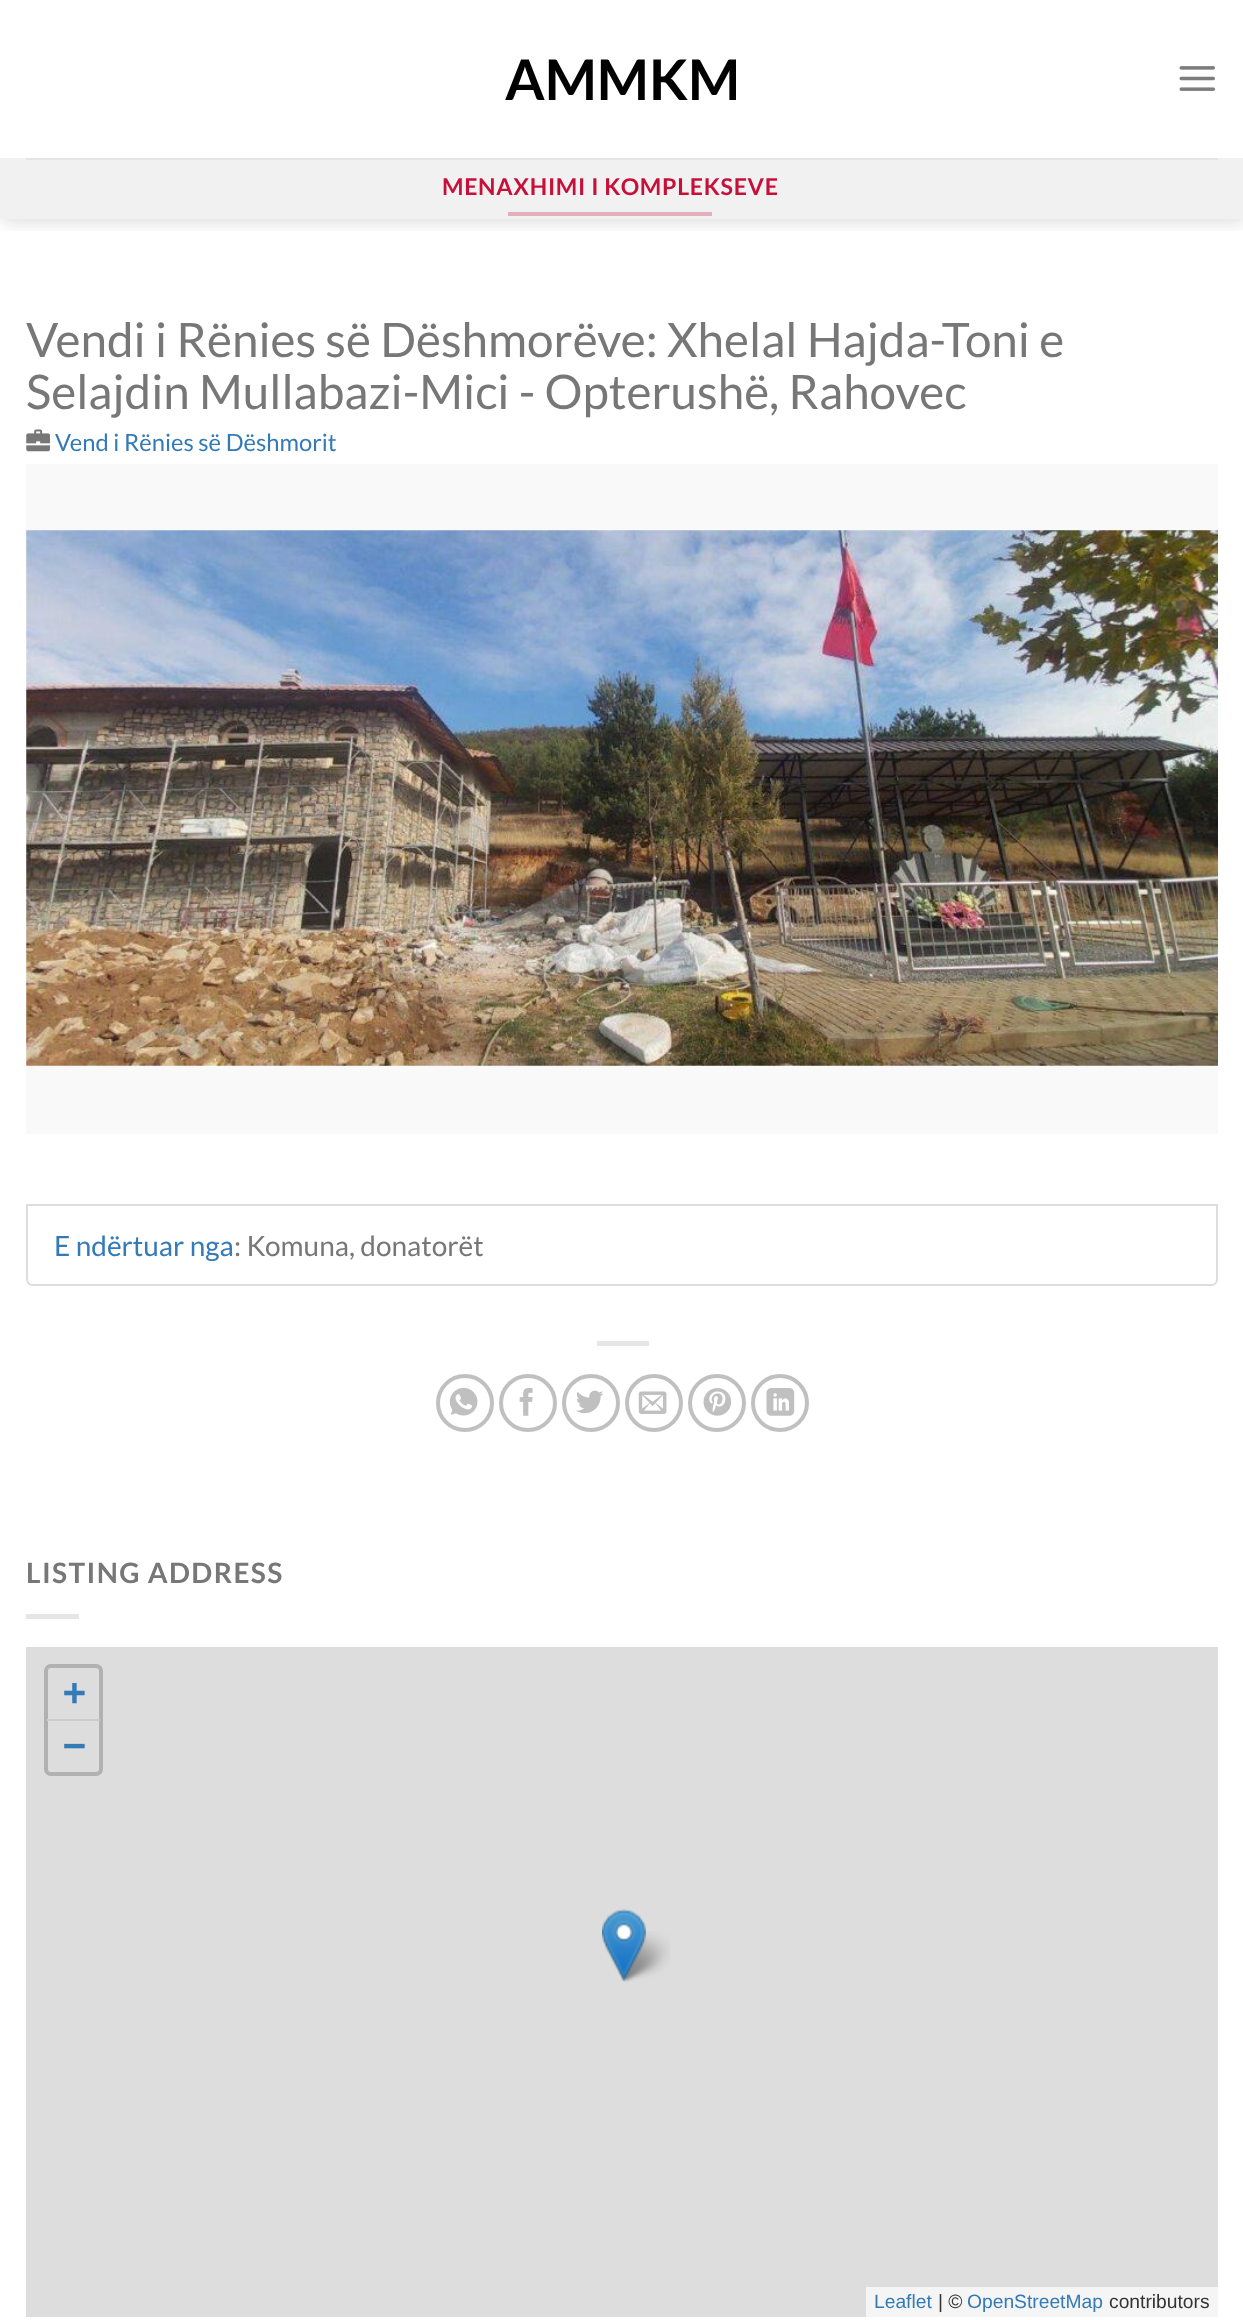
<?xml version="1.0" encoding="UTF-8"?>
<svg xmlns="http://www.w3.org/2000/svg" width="1243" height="2320">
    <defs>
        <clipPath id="clip1"><rect x="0" y="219" width="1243" height="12"/></clipPath>
        <filter id="blur1" x="-50%" y="-200%" width="200%" height="500%"><feGaussianBlur stdDeviation="9"/></filter>
    </defs>
    <rect width="100%" height="100%" fill="#FFFFFF"/>
    <g clip-path="url(#clip1)">
        <rect x="2" y="2" width="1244" height="219" fill="#000000" fill-opacity="0.15" filter="url(#blur1)"/>
    </g>
    <text x="505" y="100" font-family="Lato" font-size="56" font-weight="700" fill="#000000">AMMKM</text>
    <image x="1179" y="66" width="36" height="25" href="img_01.png"/>
    <rect x="0" y="158" width="1243" height="61" fill="#F1F1F1"/>
    <rect x="26" y="158" width="1192" height="2" fill="#E5E5E5"/>
    <text x="442" y="195" font-family="Lato" font-size="23.1" font-weight="700" letter-spacing="0.7" fill="#C6103A">MENAXHIMI I KOMPLEKSEVE</text>
    <rect x="508" y="212" width="204" height="4" fill="#E4AEBA"/>
    <text font-family="Lato" font-size="47.6" fill="#777777">
        <tspan x="26" y="357">Vendi i Rënies së Dëshmorëve: Xhelal Hajda-Toni e</tspan>
        <tspan x="26" y="409">Selajdin Mullabazi-Mici - Opterushë, Rahovec</tspan>
    </text>
    <image x="26" y="429" width="25" height="23" href="img_02.png"/>
    <text x="55" y="451" font-family="Lato" font-size="23.75" fill="#337AB7">Vend i Rënies së Dëshmorit</text>
    <rect x="26" y="464" width="1192" height="670" fill="#F9F9F9"/>
    <image x="26" y="530" width="1192" height="536" href="img_03.png"/>
    <path d="M 27 1205 H 1217 V 1279 C 1217 1282.5 1214.5 1285 1211 1285 H 33 C 29.5 1285 27 1282.5 27 1279 Z" fill="none" stroke="#DDDDDD" stroke-width="2"/>
    <text x="54" y="1256" font-family="Lato" font-size="28" fill="#337AB7">E ndërtuar nga</text>
    <text x="234" y="1256" font-family="Lato" font-size="28" fill="#777777">: Komuna, donatorët</text>
    <rect x="597" y="1341" width="52" height="5" fill="#E6E6E6"/>
    <circle cx="465" cy="1403" r="27" fill="none" stroke="#C0C0C0" stroke-width="4"/>
    <image x="449" y="1387" width="29" height="29" href="img_04.png"/>
    <circle cx="528" cy="1403" r="27" fill="none" stroke="#C0C0C0" stroke-width="4"/>
    <image x="519" y="1388" width="14" height="28" href="img_05.png"/>
    <circle cx="591" cy="1403" r="27" fill="none" stroke="#C0C0C0" stroke-width="4"/>
    <image x="576" y="1390" width="28" height="24" href="img_06.png"/>
    <circle cx="654" cy="1403" r="27" fill="none" stroke="#C0C0C0" stroke-width="4"/>
    <image x="638" y="1391" width="29" height="23" href="img_07.png"/>
    <circle cx="717" cy="1403" r="27" fill="none" stroke="#C0C0C0" stroke-width="4"/>
    <image x="703" y="1388" width="29" height="28" href="img_08.png"/>
    <circle cx="780" cy="1403" r="27" fill="none" stroke="#C0C0C0" stroke-width="4"/>
    <image x="766" y="1388" width="29" height="28" href="img_09.png"/>
    <text x="26" y="1583" font-family="Lato" font-size="28" font-weight="700" letter-spacing="1.4" fill="#777777">LISTING ADDRESS</text>
    <rect x="26" y="1614" width="53" height="5" fill="#E6E6E6"/>
    <rect x="26" y="1647" width="1192" height="670" fill="#DDDDDD"/>
    <rect x="46" y="1666" width="55" height="108" rx="5" fill="none" stroke="#B1B1B1" stroke-width="4"/>
    <rect x="47" y="1719" width="53" height="2" fill="#CCCCCC"/>
    <text font-family="DejaVu Sans Mono" font-size="38" font-weight="700" fill="#337AB7">
        <tspan x="63" y="1705">+</tspan>
        <tspan x="63" y="1758">−</tspan>
    </text>
    <rect x="866" y="2287" width="352" height="30" fill="#F5F5F5"/>
    <text x="874" y="2308" font-family="Liberation Sans" font-size="19.25" fill="#337AB7">Leaflet</text>
    <text x="938" y="2308" font-family="Liberation Sans" font-size="19.25" fill="#333333">| ©</text>
    <text x="967" y="2308" font-family="Liberation Sans" font-size="19.25" fill="#337AB7">OpenStreetMap</text>
    <text x="1109" y="2308" font-family="Liberation Sans" font-size="19.25" fill="#333333">contributors</text>
    <image x="618" y="1931" width="52" height="51" href="img_11.png"/>
    <image x="602" y="1908" width="44" height="74" href="img_10.png"/>
</svg>
